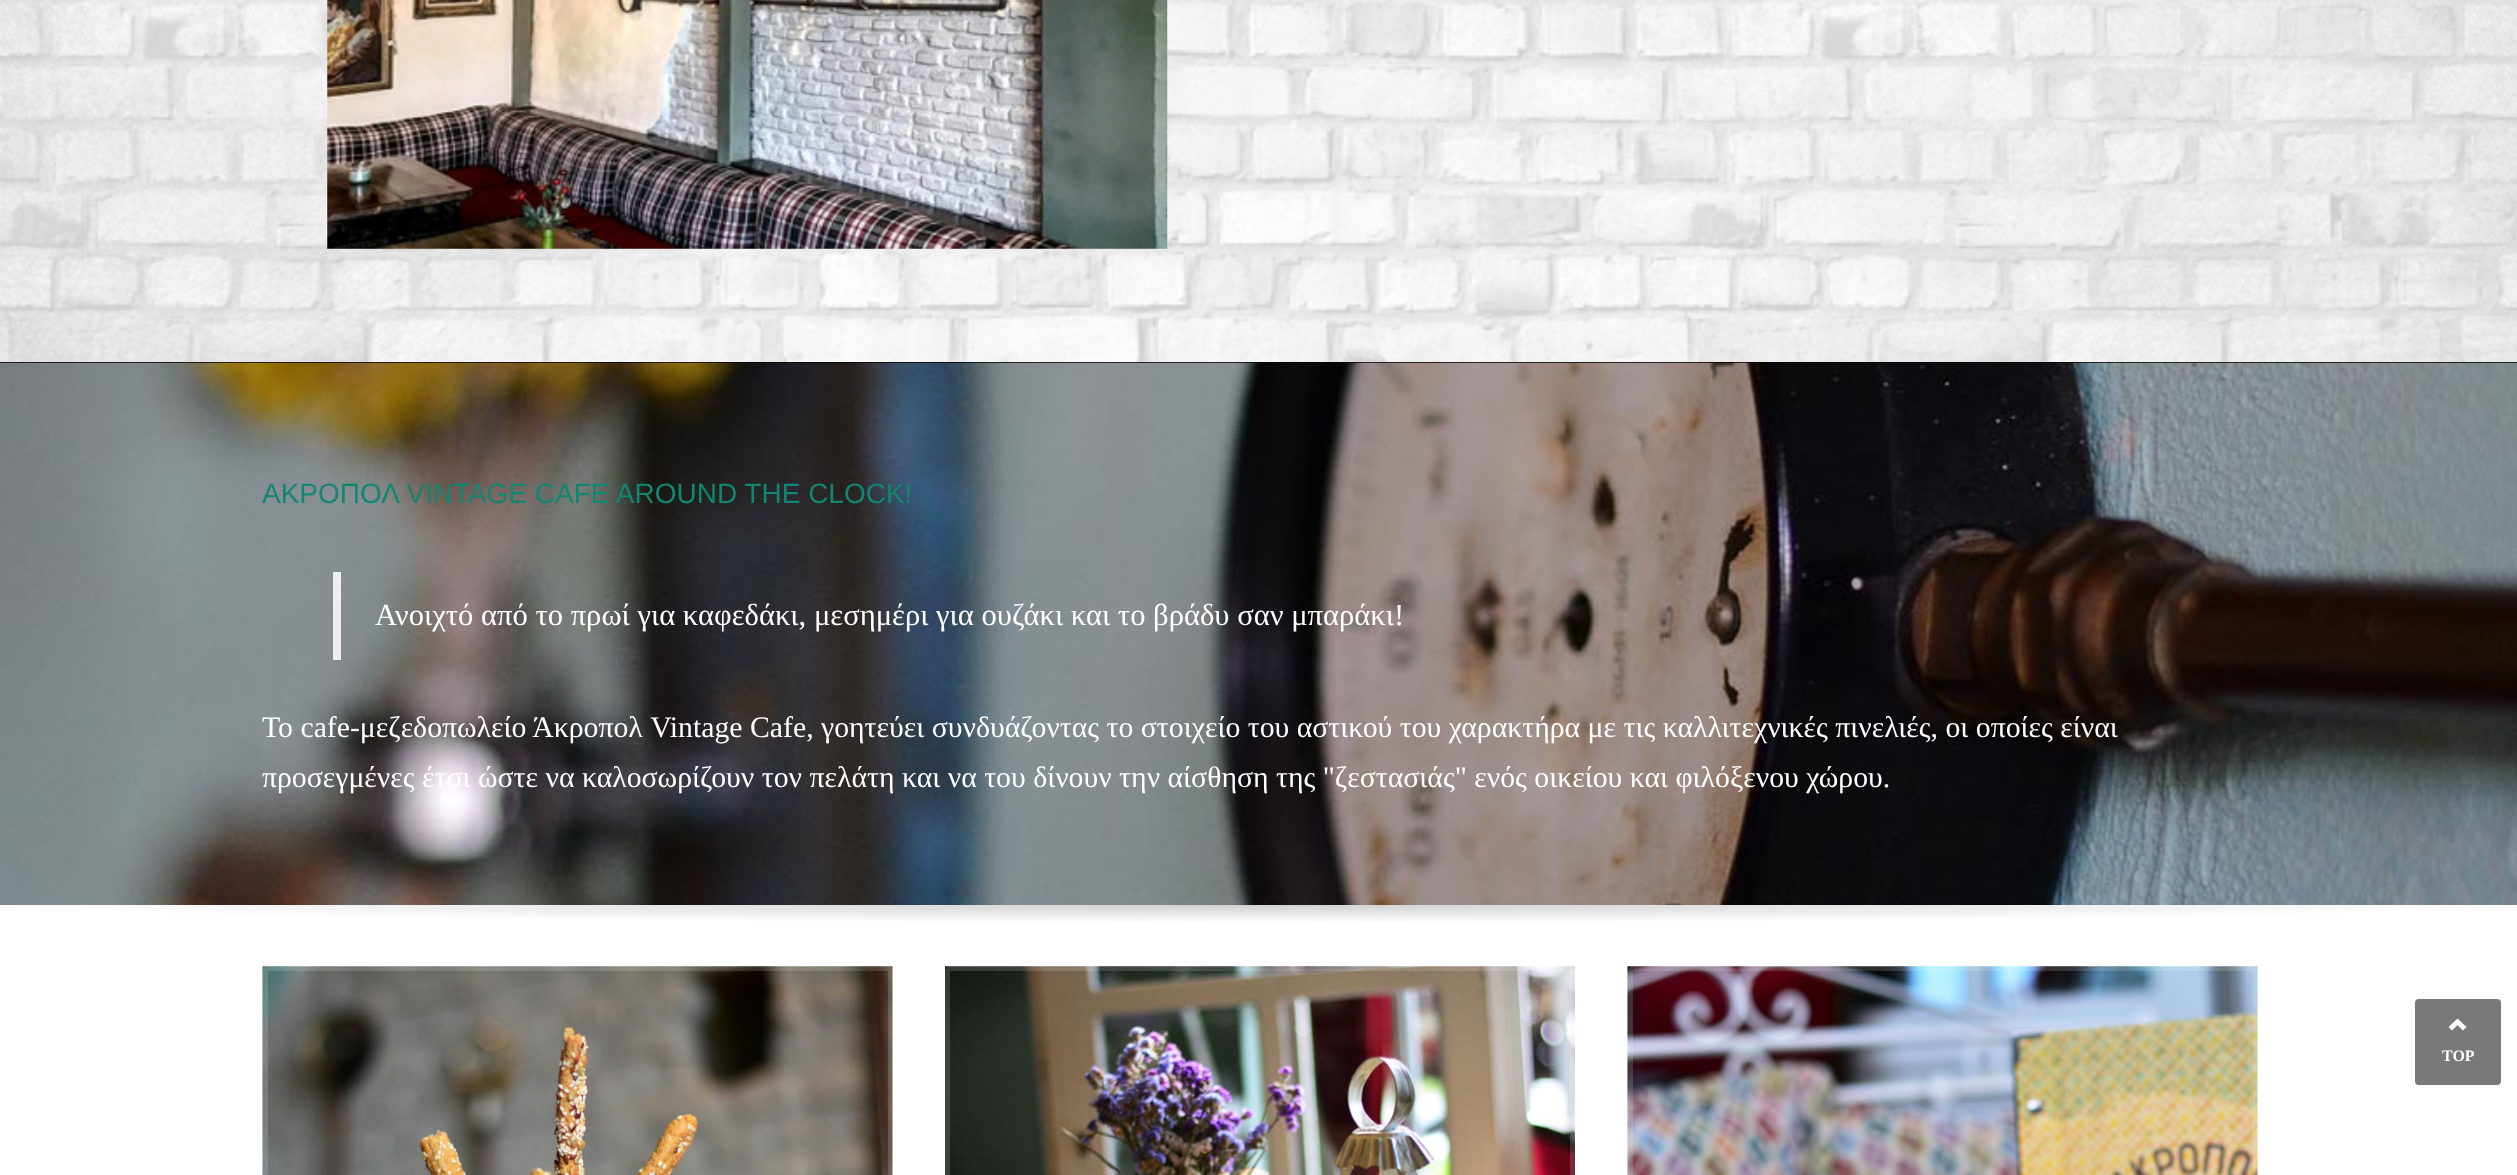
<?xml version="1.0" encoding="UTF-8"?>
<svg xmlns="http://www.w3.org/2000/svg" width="2517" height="1175">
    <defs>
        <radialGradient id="g1" gradientUnits="userSpaceOnUse" cx="0" cy="0" r="1" gradientTransform="matrix(1781 0 0 25 1259 905)"><stop offset="0" stop-color="#D1D1D1"/><stop offset="0.7" stop-color="#FFFFFF"/></radialGradient>
    </defs>
    <rect width="100%" height="100%" fill="#FFFFFF"/>
    <image x="0" y="0" width="2517" height="362" href="img_01.png"/>
    <image x="327" y="0" width="841" height="249" href="img_02.png"/>
    <rect x="0" y="362" width="2517" height="1" fill="#000000"/>
    <image x="0" y="362" width="2517" height="543" href="img_03.png"/>
    <text x="262" y="503" font-family="Liberation Sans" font-size="28" fill="#108771">ΑΚΡΟΠΟΛ VINTAGE CAFE AROUND THE CLOCK!</text>
    <rect x="333" y="572" width="8" height="88" fill="#EEEEEE"/>
    <text x="375" y="625" font-family="Liberation Serif" font-size="30.6" fill="#FFFFFF">Ανοιχτό από το πρωί για καφεδάκι, μεσημέρι για ουζάκι και το βράδυ σαν μπαράκι!</text>
    <text font-family="Liberation Serif" font-size="29.75" fill="#FFFFFF">
        <tspan x="262" y="737">Το cafe-μεζεδοπωλείο Άκροπολ Vintage Cafe, γοητεύει συνδυάζοντας το στοιχείο του αστικού του χαρακτήρα με τις καλλιτεχνικές πινελιές, οι οποίες είναι</tspan>
        <tspan x="262" y="787">προσεγμένες έτσι ώστε να καλοσωρίζουν τον πελάτη και να του δίνουν την αίσθηση της "ζεστασιάς" ενός οικείου και φιλόξενου χώρου.</tspan>
    </text>
    <rect x="87" y="905" width="2344" height="17" fill="url(#g1)"/>
    <image x="262" y="966" width="631" height="209" href="img_04.png"/>
    <rect x="265.5" y="968.5" width="625" height="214" rx="2.5" fill="none" stroke="#FFFFFF" stroke-opacity="0.15" stroke-width="5"/>
    <image x="945" y="966" width="630" height="209" href="img_05.png"/>
    <rect x="947.5" y="968.5" width="625" height="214" rx="2.5" fill="none" stroke="#FFFFFF" stroke-opacity="0.15" stroke-width="5"/>
    <image x="1627" y="966" width="631" height="209" href="img_06.png"/>
    <rect x="1630.5" y="968.5" width="625" height="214" rx="2.5" fill="none" stroke="#FFFFFF" stroke-opacity="0.15" stroke-width="5"/>
    <rect x="2415" y="999" width="86" height="86" rx="4" fill="#797979"/>
    <path d="M 2457.5 1018.5 L 2466.5 1027 L 2463 1030.5 L 2457.5 1025 L 2452 1030.5 L 2448.5 1027 Z" fill="#FFFFFF"/>
    <text x="2442" y="1061" font-family="Liberation Serif" font-size="16" font-weight="700" fill="#FFFFFF">TOP</text>
</svg>
